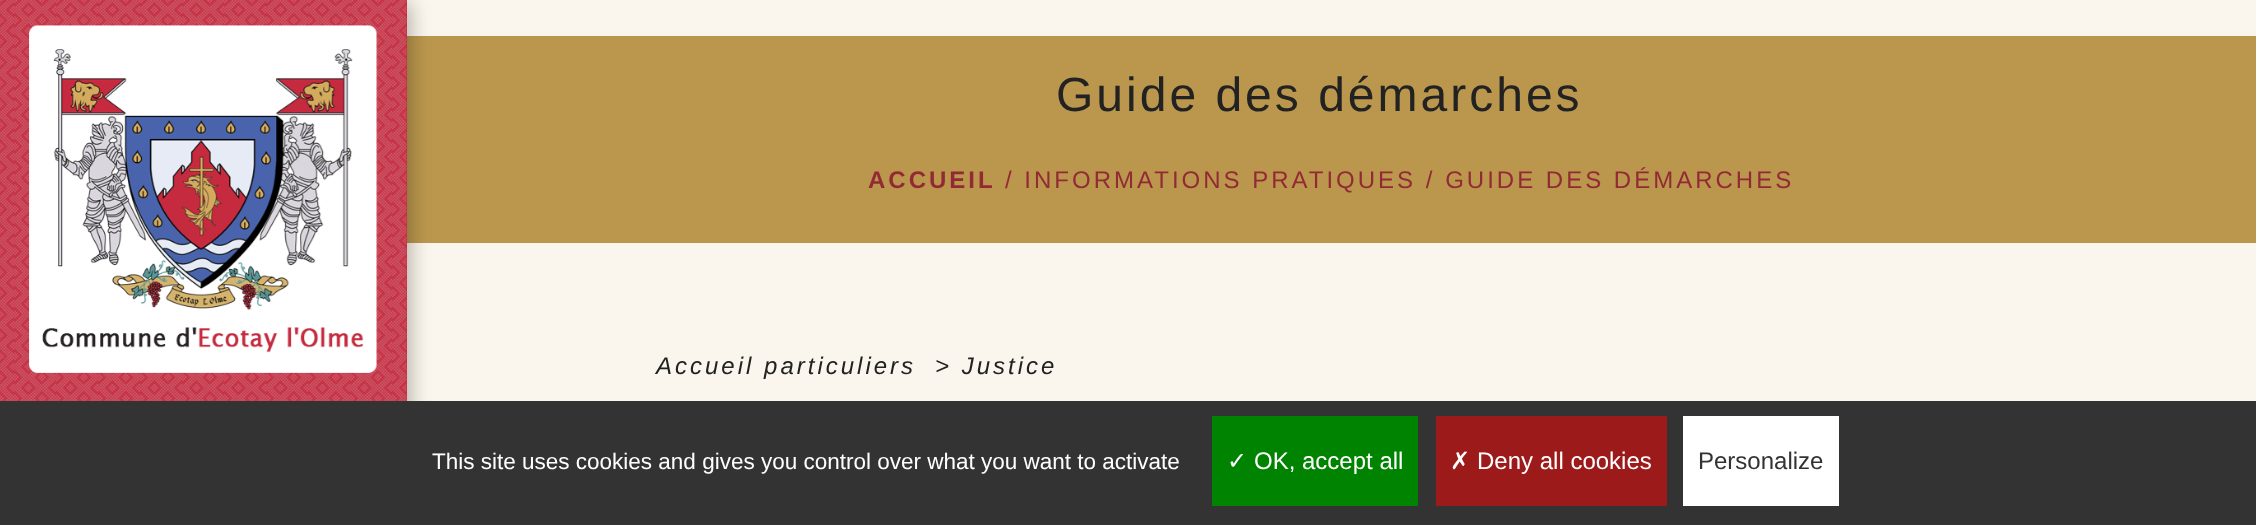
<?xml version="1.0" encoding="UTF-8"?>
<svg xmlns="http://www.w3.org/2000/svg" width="2256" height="525">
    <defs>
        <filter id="blur1" x="-50%" y="-200%" width="200%" height="500%"><feGaussianBlur stdDeviation="10"/></filter>
    </defs>
    <rect width="100%" height="100%" fill="#FAF6ED"/>
    <rect x="407" y="36" width="1849" height="207" fill="#BA974D"/>
    <rect x="3" y="3" width="407" height="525" fill="#000000" fill-opacity="0.3" filter="url(#blur1)"/>
    <rect x="0" y="0" width="407" height="401" fill="#C62A3E"/>
    <image x="0" y="0" width="407" height="401" href="img_01.png"/>
    <image x="29" y="25" width="349" height="348" href="img_02.png"/>
    <text x="1056" y="111" font-family="Liberation Sans" font-size="48" letter-spacing="3" fill="#232222">Guide des démarches</text>
    <text x="868" y="188" font-family="Liberation Sans" font-size="24" font-weight="700" letter-spacing="3" fill="#942936">ACCUEIL</text>
    <text x="1005" y="188" font-family="Liberation Sans" font-size="24" letter-spacing="3" fill="#942936">/ INFORMATIONS PRATIQUES / GUIDE DES DÉMARCHES</text>
    <text x="656" y="374" font-family="Liberation Sans" font-size="24" font-style="italic" letter-spacing="3" fill="#232222">Accueil particuliers</text>
    <text x="935" y="374" font-family="Liberation Sans" font-size="24" font-style="italic" letter-spacing="3" fill="#232222">&gt; Justice</text>
    <rect x="0" y="401" width="2256" height="124" fill="#333333"/>
    <text x="432" y="469" font-family="Liberation Sans" font-size="22.5" fill="#FFFFFF">This site uses cookies and gives you control over what you want to activate</text>
    <rect x="1212" y="416" width="206" height="90" fill="#008300"/>
    <text x="1227" y="469" font-family="DejaVu Sans" font-size="24" fill="#FFFFFF">✓</text>
    <text x="1254" y="469" font-family="Liberation Sans" font-size="24" fill="#FFFFFF">OK, accept all</text>
    <rect x="1436" y="416" width="231" height="90" fill="#9C1A1A"/>
    <text x="1450" y="469" font-family="DejaVu Sans" font-size="24" fill="#FFFFFF">✗</text>
    <text x="1477" y="469" font-family="Liberation Sans" font-size="24" fill="#FFFFFF">Deny all cookies</text>
    <rect x="1683" y="416" width="156" height="90" fill="#FFFFFF"/>
    <text x="1698" y="469" font-family="Liberation Sans" font-size="24" fill="#333333">Personalize</text>
</svg>
